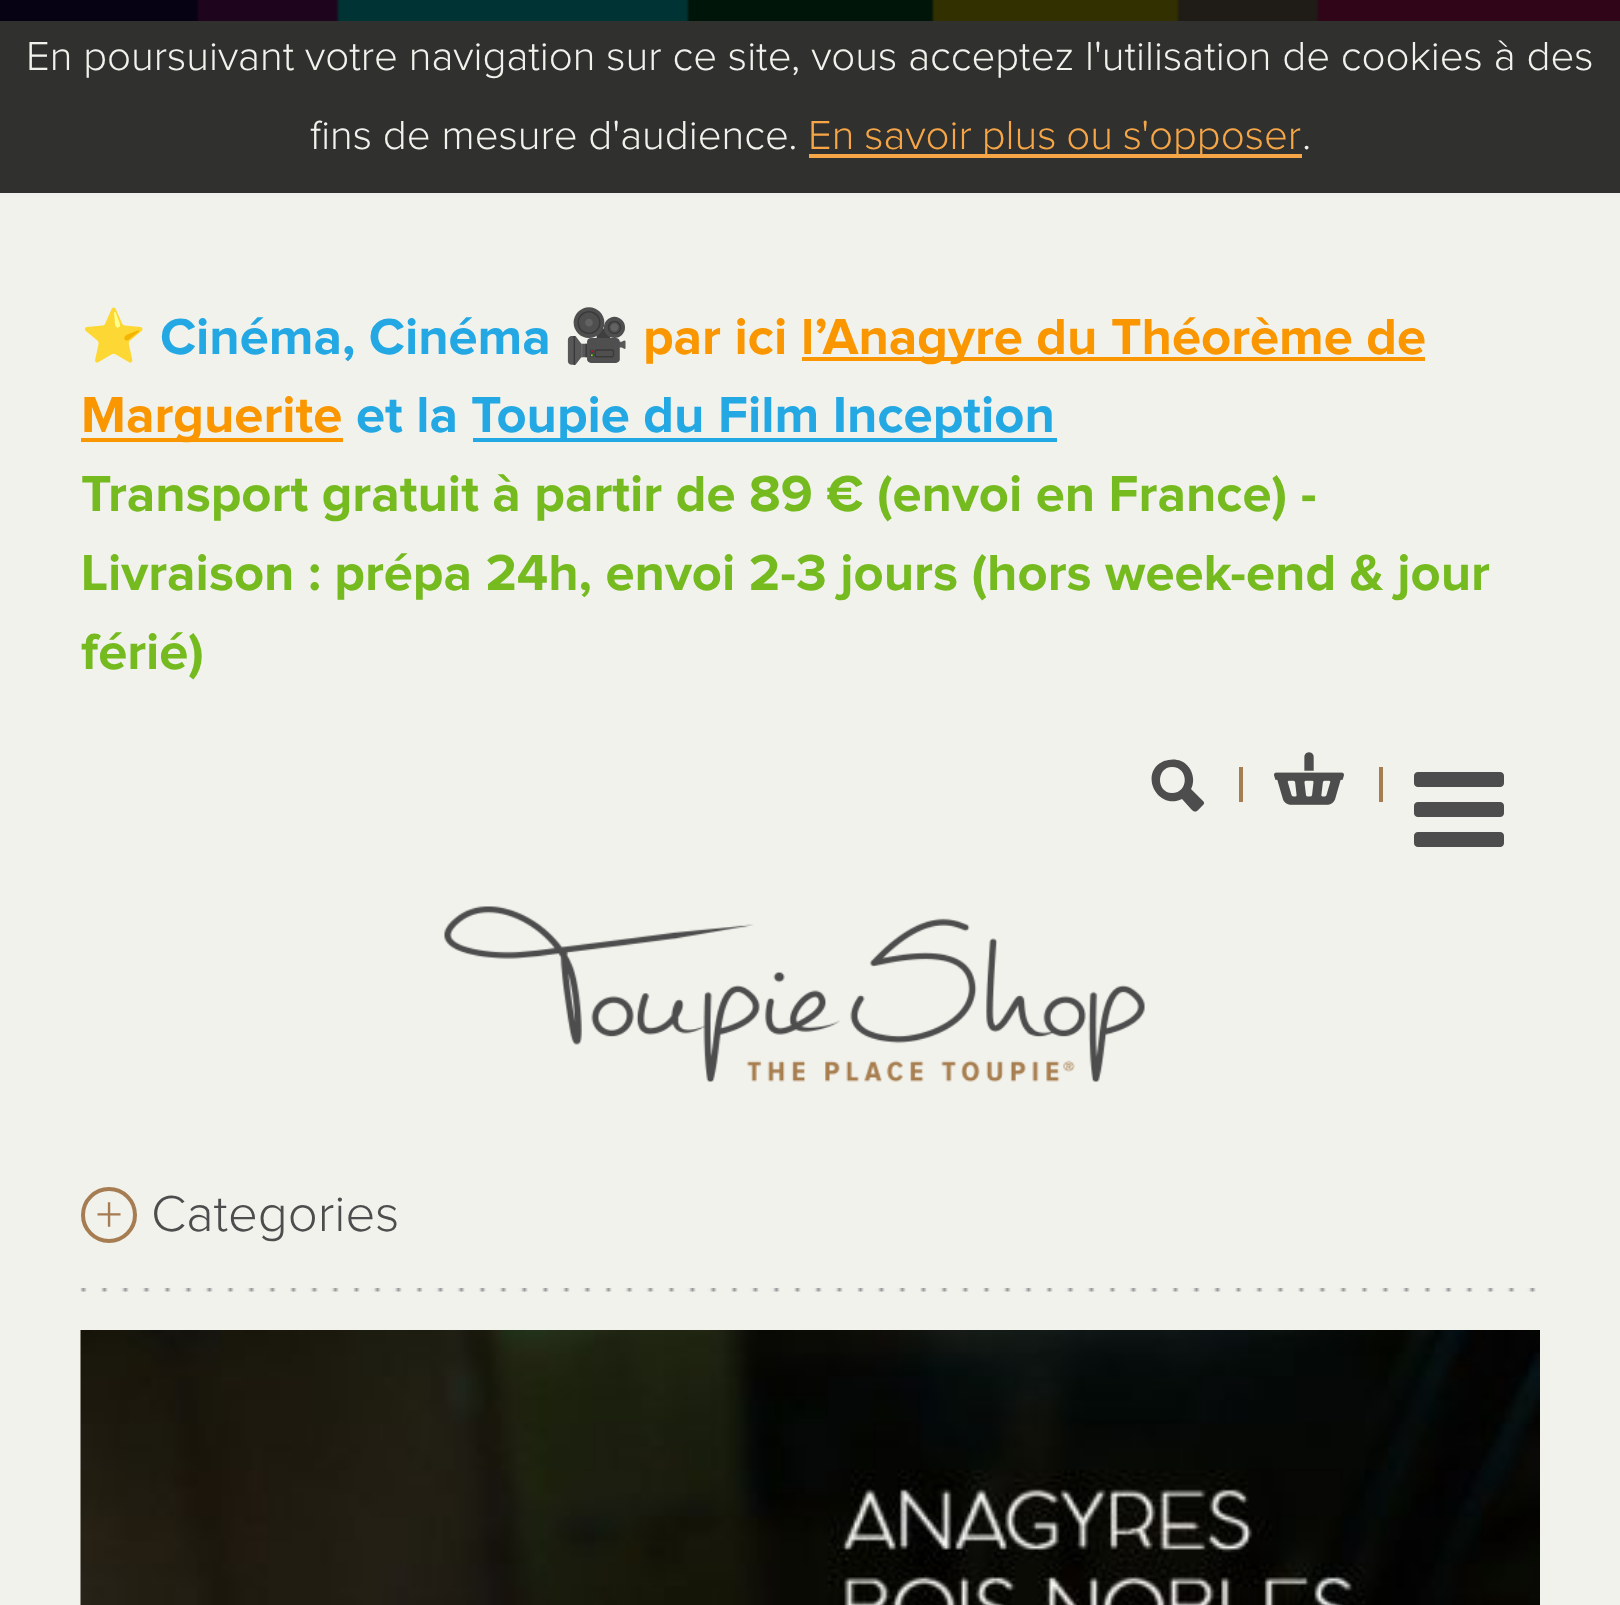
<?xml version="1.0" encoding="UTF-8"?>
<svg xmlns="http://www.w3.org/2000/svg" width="1620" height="1605">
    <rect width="100%" height="100%" fill="#F2F2ED"/>
    <rect x="0" y="21" width="1620" height="172" fill="#30302F"/>
    <image x="0" y="0" width="1620" height="21" href="img_01.png"/>
    <rect x="0" y="193" width="1620" height="4" fill="#EFEFEE"/>
    <text x="26" y="70" font-family="Proxima Nova" font-size="42" font-weight="300" fill="#F2F2ED">En poursuivant votre navigation sur ce site, vous acceptez l'utilisation de cookies à des</text>
    <text x="310" y="149" font-family="Proxima Nova" font-size="42" font-weight="300" fill="#F2F2ED">fins de mesure d'audience.</text>
    <rect x="809" y="154" width="493" height="4" fill="#F6A647"/>
    <text x="808" y="149" word-spacing="-1" font-family="Proxima Nova" font-size="42" font-weight="300" fill="#F6A647">En savoir plus ou s'opposer</text>
    <text x="1302" y="149" font-family="Proxima Nova" font-size="42" font-weight="300" fill="#F2F2ED">.</text>
    <image x="80" y="1288" width="1456" height="4" href="img_02.png"/>
    <text x="81" y="354" font-family="Noto Color Emoji" font-size="52.5" font-weight="700" fill="#75BB20">⭐</text>
    <text x="160" y="354" font-family="Proxima Nova" font-size="52.5" font-weight="700" fill="#23A8E4">Cinéma, Cinéma</text>
    <text x="564" y="354" font-family="Noto Color Emoji" font-size="52.5" font-weight="700" fill="#23A8E4">🎥</text>
    <text x="643" y="354" font-family="Proxima Nova" font-size="52.5" font-weight="700" fill="#F99600">par ici</text>
    <rect x="802" y="357" width="623" height="4" fill="#F99600"/>
    <text x="801" y="354" font-family="Proxima Nova" font-size="52.5" font-weight="700" fill="#F99600">l’Anagyre du Théorème de</text>
    <rect x="81" y="438" width="262" height="4" fill="#F99600"/>
    <text x="81" y="432" font-family="Proxima Nova" font-size="52.5" font-weight="700" fill="#F99600">Marguerite</text>
    <text x="356" y="432" font-family="Proxima Nova" font-size="52.5" font-weight="700" fill="#23A8E4">et la</text>
    <rect x="473" y="438" width="584" height="4" fill="#23A8E4"/>
    <text x="471" y="432" font-family="Proxima Nova" font-size="52.5" font-weight="700" fill="#23A8E4">Toupie du Film Inception</text>
    <text font-family="Proxima Nova" font-size="52.5" font-weight="700" fill="#75BB20">
        <tspan x="81" y="511">Transport gratuit à partir de 89 € (envoi en France) -</tspan>
        <tspan x="81" y="590">Livraison : prépa 24h, envoi 2-3 jours (hors week-end &amp; jour</tspan>
        <tspan x="81" y="669">férié)</tspan>
    </text>
    <path d="M 1203 801 L 1191 789 C 1196 779 1192 766 1181 761 C 1176 759 1170 759 1164 761 C 1138 772 1157 811 1182 799 L 1191 809 C 1196 814 1197 811 1202 806 C 1204 804 1205 803 1203 801 Z M 1172 793 C 1156 793 1156 767 1172 767 C 1189 767 1189 793 1172 793 Z" fill="#4D4D4D"/>
    <rect x="1239" y="767" width="4" height="35" fill="#A67C52"/>
    <image x="1274" y="752" width="70" height="53" href="img_03.png"/>
    <rect x="1379" y="767" width="4" height="35" fill="#A67C52"/>
    <image x="1414" y="772" width="90" height="75" href="img_04.png"/>
    <image x="444" y="906" width="701" height="176" href="img_05.png"/>
    <circle cx="109" cy="1215" r="26" fill="none" stroke="#A67C52" stroke-width="4"/>
    <text x="96" y="1232" font-family="Proxima Nova" font-size="52.5" font-weight="300" fill="#A67C52">+</text>
    <text x="151" y="1231" font-family="Proxima Nova" font-size="52.5" font-weight="300" fill="#4D4D4D">Categories</text>
    <image x="80" y="1330" width="1460" height="275" href="img_06.png"/>
</svg>
